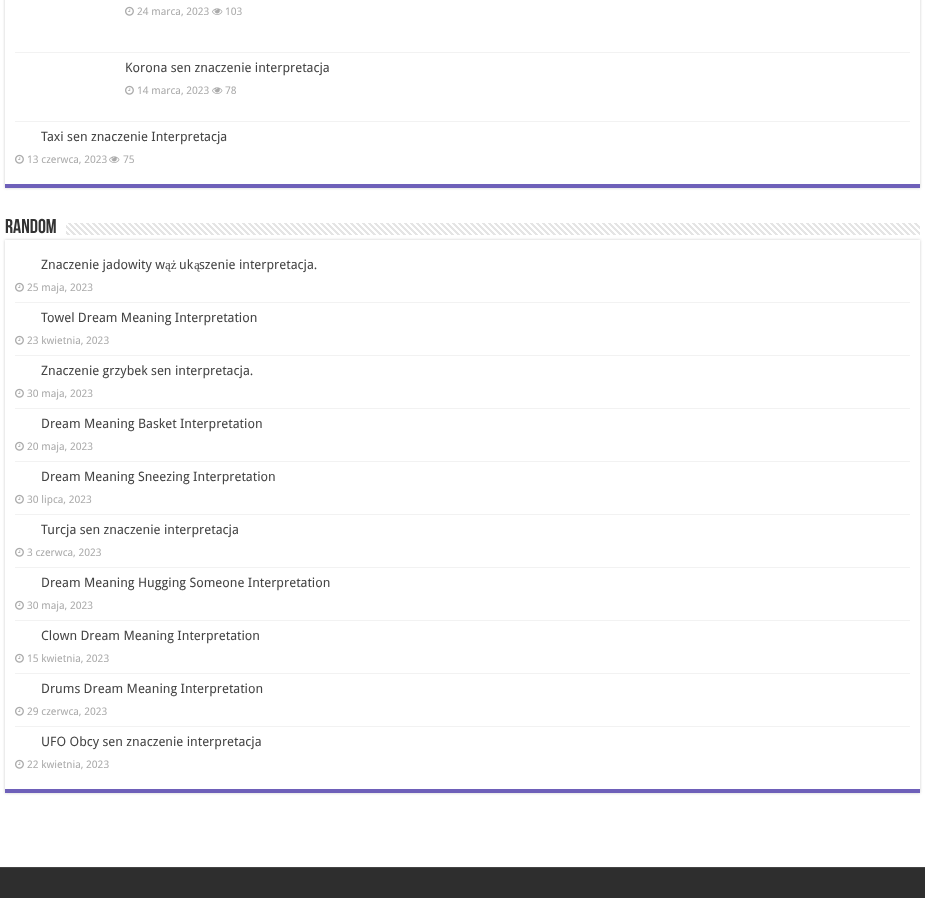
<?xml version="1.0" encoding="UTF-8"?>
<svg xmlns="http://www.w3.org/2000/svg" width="925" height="898">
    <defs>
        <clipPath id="clip1"><path d="M 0 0 H 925 V 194 H 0 Z M 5 -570 H 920 V 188 H 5 Z" clip-rule="evenodd"/></clipPath>
        <filter id="blur1" x="-50%" y="-200%" width="200%" height="500%"><feGaussianBlur stdDeviation="1.5"/></filter>
        <clipPath id="clip2"><path d="M 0 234 H 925 V 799 H 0 Z M 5 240 H 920 V 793 H 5 Z" clip-rule="evenodd"/></clipPath>
    </defs>
    <rect width="100%" height="100%" fill="#FFFFFF"/>
    <g clip-path="url(#clip1)">
        <rect x="5" y="-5" width="915" height="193" fill="#CACACA" filter="url(#blur1)"/>
    </g>
    <rect x="5" y="184" width="915" height="4" fill="#6E60B9"/>
    <rect x="15" y="52" width="895" height="1" fill="#F2F2F2"/>
    <image x="125" y="6" width="9" height="10" href="img_01.png"/>
    <text x="137" y="15" font-family="Droid Sans" font-size="10.5" fill="#AAAAAA">24 marca, 2023</text>
    <image x="212" y="8" width="11" height="7" href="img_02.png"/>
    <text x="225" y="15" font-family="Droid Sans" font-size="10.5" fill="#AAAAAA">103</text>
    <rect x="15" y="121" width="895" height="1" fill="#F2F2F2"/>
    <text x="125" y="72" font-family="Droid Sans" font-size="13" fill="#444444">Korona sen znaczenie interpretacja</text>
    <image x="125" y="85" width="9" height="10" href="img_01.png"/>
    <text x="137" y="94" font-family="Droid Sans" font-size="10.5" fill="#AAAAAA">14 marca, 2023</text>
    <image x="212" y="87" width="11" height="7" href="img_02.png"/>
    <text x="225" y="94" font-family="Droid Sans" font-size="10.5" fill="#AAAAAA">78</text>
    <text x="41" y="141" font-family="Droid Sans" font-size="13" fill="#444444">Taxi sen znaczenie Interpretacja</text>
    <image x="15" y="154" width="9" height="10" href="img_01.png"/>
    <text x="27" y="163" font-family="Droid Sans" font-size="10.5" fill="#AAAAAA">13 czerwca, 2023</text>
    <image x="109" y="156" width="11" height="7" href="img_02.png"/>
    <text x="123" y="163" font-family="Droid Sans" font-size="10.5" fill="#AAAAAA">75</text>
    <text x="5" y="233" font-family="Bebas Neue" font-size="20" font-weight="700" fill="#333333">Random</text>
    <g clip-path="url(#clip2)">
        <rect x="5" y="240" width="915" height="553" fill="#CACACA" filter="url(#blur1)"/>
    </g>
    <image x="66" y="223" width="854" height="12" href="img_03.png"/>
    <rect x="5" y="789" width="915" height="4" fill="#6E60B9"/>
    <rect x="15" y="302" width="895" height="1" fill="#F2F2F2"/>
    <text x="41" y="269" font-family="Droid Sans" font-size="13" fill="#444444">Znaczenie jadowity w</text>
    <text x="165" y="269" font-family="Liberation Serif" font-size="13" fill="#444444">ąż</text>
    <text x="179" y="269" font-family="Droid Sans" font-size="13" fill="#444444">uk</text>
    <text x="194" y="269" font-family="Liberation Serif" font-size="13" fill="#444444">ą</text>
    <text x="199" y="269" font-family="Droid Sans" font-size="13" fill="#444444">szenie interpretacja.</text>
    <image x="15" y="282" width="9" height="10" href="img_01.png"/>
    <text x="27" y="291" font-family="Droid Sans" font-size="10.5" fill="#AAAAAA">25 maja, 2023</text>
    <rect x="15" y="355" width="895" height="1" fill="#F2F2F2"/>
    <text x="41" y="322" font-family="Droid Sans" font-size="13" fill="#444444">Towel Dream Meaning Interpretation</text>
    <image x="15" y="335" width="9" height="10" href="img_01.png"/>
    <text x="27" y="344" font-family="Droid Sans" font-size="10.5" fill="#AAAAAA">23 kwietnia, 2023</text>
    <rect x="15" y="408" width="895" height="1" fill="#F2F2F2"/>
    <text x="41" y="375" font-family="Droid Sans" font-size="13" fill="#444444">Znaczenie grzybek sen interpretacja.</text>
    <image x="15" y="388" width="9" height="10" href="img_01.png"/>
    <text x="27" y="397" font-family="Droid Sans" font-size="10.5" fill="#AAAAAA">30 maja, 2023</text>
    <rect x="15" y="461" width="895" height="1" fill="#F2F2F2"/>
    <text x="41" y="428" font-family="Droid Sans" font-size="13" fill="#444444">Dream Meaning Basket Interpretation</text>
    <image x="15" y="441" width="9" height="10" href="img_01.png"/>
    <text x="27" y="450" font-family="Droid Sans" font-size="10.5" fill="#AAAAAA">20 maja, 2023</text>
    <rect x="15" y="514" width="895" height="1" fill="#F2F2F2"/>
    <text x="41" y="481" font-family="Droid Sans" font-size="13" fill="#444444">Dream Meaning Sneezing Interpretation</text>
    <image x="15" y="494" width="9" height="10" href="img_01.png"/>
    <text x="27" y="503" font-family="Droid Sans" font-size="10.5" fill="#AAAAAA">30 lipca, 2023</text>
    <rect x="15" y="567" width="895" height="1" fill="#F2F2F2"/>
    <text x="41" y="534" font-family="Droid Sans" font-size="13" fill="#444444">Turcja sen znaczenie interpretacja</text>
    <image x="15" y="547" width="9" height="10" href="img_01.png"/>
    <text x="27" y="556" font-family="Droid Sans" font-size="10.5" fill="#AAAAAA">3 czerwca, 2023</text>
    <rect x="15" y="620" width="895" height="1" fill="#F2F2F2"/>
    <text x="41" y="587" font-family="Droid Sans" font-size="13" fill="#444444">Dream Meaning Hugging Someone Interpretation</text>
    <image x="15" y="600" width="9" height="10" href="img_01.png"/>
    <text x="27" y="609" font-family="Droid Sans" font-size="10.5" fill="#AAAAAA">30 maja, 2023</text>
    <rect x="15" y="673" width="895" height="1" fill="#F2F2F2"/>
    <text x="41" y="640" font-family="Droid Sans" font-size="13" fill="#444444">Clown Dream Meaning Interpretation</text>
    <image x="15" y="653" width="9" height="10" href="img_01.png"/>
    <text x="27" y="662" font-family="Droid Sans" font-size="10.5" fill="#AAAAAA">15 kwietnia, 2023</text>
    <rect x="15" y="726" width="895" height="1" fill="#F2F2F2"/>
    <text x="41" y="693" font-family="Droid Sans" font-size="13" fill="#444444">Drums Dream Meaning Interpretation</text>
    <image x="15" y="706" width="9" height="10" href="img_01.png"/>
    <text x="27" y="715" font-family="Droid Sans" font-size="10.5" fill="#AAAAAA">29 czerwca, 2023</text>
    <text x="41" y="746" font-family="Droid Sans" font-size="13" fill="#444444">UFO Obcy sen znaczenie interpretacja</text>
    <image x="15" y="759" width="9" height="10" href="img_01.png"/>
    <text x="27" y="768" font-family="Droid Sans" font-size="10.5" fill="#AAAAAA">22 kwietnia, 2023</text>
    <rect x="0" y="868" width="925" height="30" fill="#2E2E2E"/>
    <rect x="0" y="867" width="925" height="1" fill="#444444"/>
</svg>
